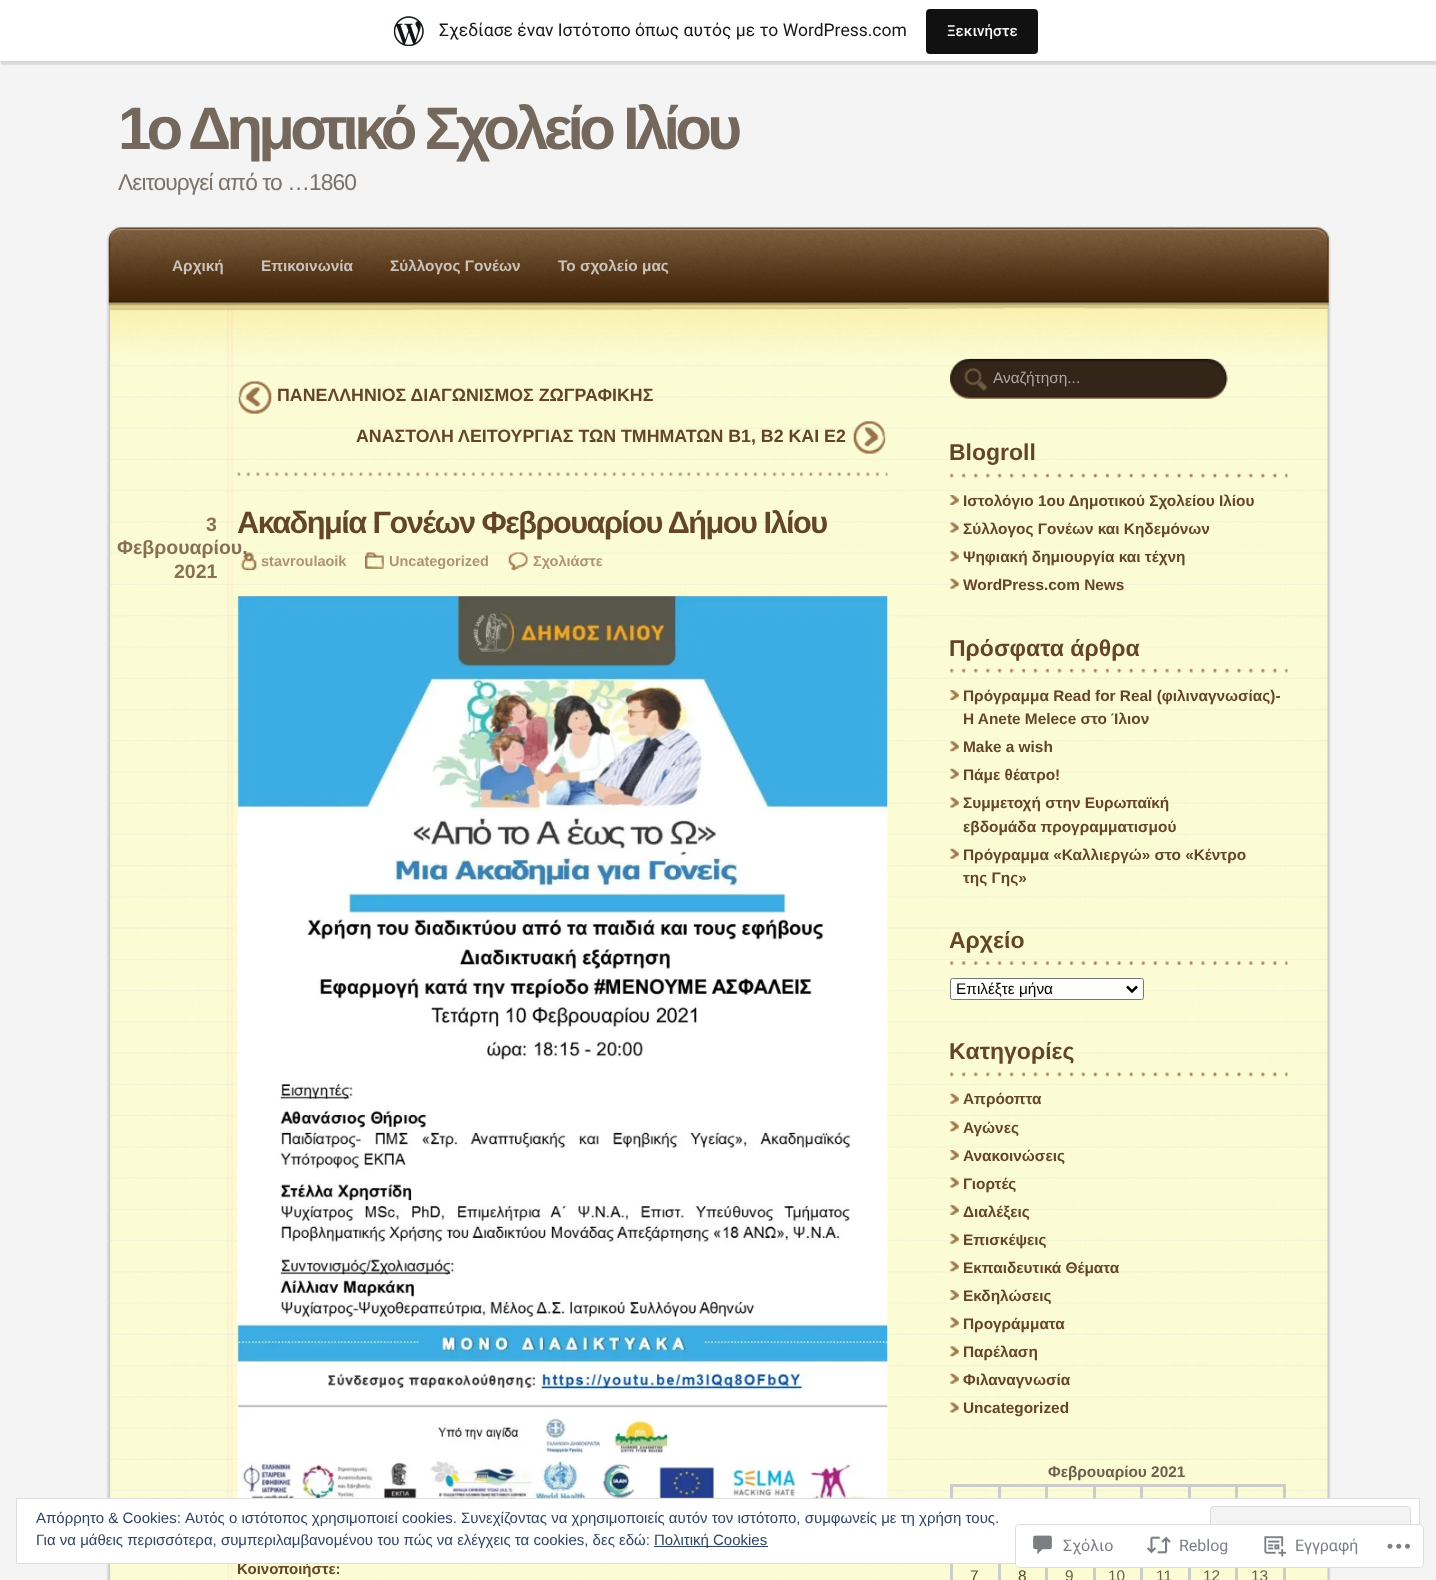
<?xml version="1.0" encoding="UTF-8"?>
<svg xmlns="http://www.w3.org/2000/svg" width="1436" height="1580">
    <defs>
        <filter id="blur1" x="-50%" y="-200%" width="200%" height="500%"><feGaussianBlur stdDeviation="1"/></filter>
        <clipPath id="clip1"><rect x="238" y="508" width="650" height="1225"/></clipPath>
    </defs>
    <rect width="100%" height="100%" fill="#F5F4F4"/>
    <rect x="0" y="1" width="1436" height="62" fill="#000000" fill-opacity="0.05" filter="url(#blur1)"/>
    <path d="M 1 61 V 65 H 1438 V 4 H 1436 V 61 Z" fill="#000000" fill-opacity="0.08"/>
    <rect x="0" y="0" width="1436" height="61" fill="#FFFFFF"/>
    <image x="394" y="16" width="30" height="30" href="img_01.png"/>
    <text x="439" y="36" font-family="Roboto" font-size="17.5" fill="#171717">Σχεδίασε έναν Ιστότοπο όπως αυτός με το WordPress.com</text>
    <rect x="926" y="9" width="112" height="45" rx="4" fill="#111111"/>
    <text x="947" y="36" font-family="Roboto" font-size="15" font-weight="500" fill="#F6F7F7">Ξεκινήστε</text>
    <image x="106" y="358" width="1225" height="1222" href="img_03.png"/>
    <image x="106" y="226" width="1225" height="133" href="img_02.png"/>
    <text x="118" y="149" font-family="Liberation Sans" font-size="60" font-weight="700" letter-spacing="-4.8" fill="#74685C">1ο Δημοτικό Σχολείο Ιλίου</text>
    <text x="118" y="190" font-family="Liberation Sans" font-size="22.75" letter-spacing="-0.9" fill="#7C7268">Λειτουργεί από το …1860</text>
    <text x="172" y="271" font-family="Liberation Sans" font-size="15.4" font-weight="700" fill="#CBC3BB">Αρχική</text>
    <text x="261" y="271" font-family="Liberation Sans" font-size="15.4" font-weight="700" fill="#CBC3BB">Επικοινωνία</text>
    <text x="390" y="271" font-family="Liberation Sans" font-size="15.4" font-weight="700" fill="#CBC3BB">Σύλλογος Γονέων</text>
    <text x="558" y="271" font-family="Liberation Sans" font-size="15.4" font-weight="700" fill="#CBC3BB">Το σχολείο μας</text>
    <image x="237" y="472" width="651" height="5" href="img_04.png"/>
    <image x="238" y="381" width="34" height="33" href="img_05.png"/>
    <text x="277" y="401" font-family="Liberation Sans" font-size="17.8" font-weight="700" fill="#644527">ΠΑΝΕΛΛHΝΙΟΣ ΔΙΑΓΩΝΙΣΜOΣ ΖΩΓΡΑΦΙΚHΣ</text>
    <image x="853" y="421" width="33" height="33" href="img_06.png"/>
    <text x="356" y="442" font-family="Liberation Sans" font-size="17.8" font-weight="700" fill="#644527">ΑΝΑΣΤΟΛΗ ΛΕΙΤΟΥΡΓΙΑΣ ΤΩΝ ΤΜΗΜΑΤΩΝ Β1, Β2 ΚΑΙ Ε2</text>
    <text x="206" y="531" font-family="Liberation Sans" font-size="19.5" font-weight="700" fill="#887057">3</text>
    <image x="241" y="552" width="16" height="19" href="img_07.png"/>
    <text x="117" y="554" font-family="Liberation Sans" font-size="19.5" font-weight="700" fill="#887057">Φεβρουαρίου,</text>
    <text x="174" y="578" font-family="Liberation Sans" font-size="19.5" font-weight="700" fill="#887057">2021</text>
    <text x="237" y="533" font-family="Liberation Sans" font-size="30.75" font-weight="700" letter-spacing="-1.55" fill="#644527">Ακαδημία Γονέων Φεβρουαρίου Δήμου Ιλίου</text>
    <text x="261" y="566" font-family="Liberation Sans" font-size="14.5" font-weight="700" fill="#B09473">stavroulaoik</text>
    <image x="365" y="552" width="19" height="17" href="img_08.png"/>
    <text x="389" y="566" font-family="Liberation Sans" font-size="14.5" font-weight="700" fill="#B09473">Uncategorized</text>
    <image x="508" y="552" width="20" height="19" href="img_09.png"/>
    <text x="533" y="566" font-family="Liberation Sans" font-size="14.5" font-weight="700" fill="#B09473">Σχολιάστε</text>
    <image x="237" y="595" width="651" height="903" href="img_10.png"/>
    <g clip-path="url(#clip1)">
        <text x="237" y="1574" font-family="Liberation Sans" font-size="15" font-weight="700" fill="#644527">Κοινοποιήστε:</text>
    </g>
    <image x="950" y="358" width="278" height="41" href="img_11.png"/>
    <text x="993" y="383" font-family="Liberation Sans" font-size="15.4" fill="#ADA8A3">Αναζήτηση...</text>
    <image x="950" y="473" width="338" height="5" href="img_12.png"/>
    <text x="949" y="460" font-family="Liberation Sans" font-size="23" font-weight="700" fill="#644527">Blogroll</text>
    <image x="950" y="495" width="9" height="10" href="img_13.png"/>
    <text x="963" y="506" font-family="Liberation Sans" font-size="15.4" font-weight="700" fill="#644527">Ιστολόγιο 1ου Δημοτικού Σχολείου Ιλίου</text>
    <image x="950" y="522" width="9" height="11" href="img_14.png"/>
    <text x="963" y="534" font-family="Liberation Sans" font-size="15.4" font-weight="700" fill="#644527">Σύλλογος Γονέων και Κηδεμόνων</text>
    <image x="950" y="551" width="9" height="11" href="img_15.png"/>
    <text x="963" y="562" font-family="Liberation Sans" font-size="15.4" font-weight="700" fill="#644527">Ψηφιακή δημιουργία και τέχνη</text>
    <image x="950" y="578" width="9" height="11" href="img_16.png"/>
    <text x="963" y="590" font-family="Liberation Sans" font-size="15.4" font-weight="700" fill="#644527">WordPress.com News</text>
    <image x="950" y="668" width="338" height="5" href="img_17.png"/>
    <text x="949" y="656" font-family="Liberation Sans" font-size="23" font-weight="700" fill="#644527">Πρόσφατα άρθρα</text>
    <image x="950" y="690" width="9" height="10" href="img_18.png"/>
    <text font-family="Liberation Sans" font-size="15.4" font-weight="700" fill="#644527">
        <tspan x="963" y="701">Πρόγραμμα Read for Real (φιλιναγνωσίας)-</tspan>
        <tspan x="963" y="724">H Anete Melece στο Ίλιον</tspan>
    </text>
    <image x="950" y="741" width="9" height="11" href="img_19.png"/>
    <text x="963" y="752" font-family="Liberation Sans" font-size="15.4" font-weight="700" fill="#644527">Make a wish</text>
    <image x="950" y="768" width="9" height="11" href="img_20.png"/>
    <text x="963" y="780" font-family="Liberation Sans" font-size="15.4" font-weight="700" fill="#644527">Πάμε θέατρο!</text>
    <image x="950" y="797" width="9" height="11" href="img_21.png"/>
    <text font-family="Liberation Sans" font-size="15.4" font-weight="700" fill="#644527">
        <tspan x="963" y="808">Συμμετοχή στην Ευρωπαϊκή</tspan>
        <tspan x="963" y="832">εβδομάδα προγραμματισμού</tspan>
    </text>
    <image x="950" y="848" width="9" height="11" href="img_22.png"/>
    <text font-family="Liberation Sans" font-size="15.4" font-weight="700" fill="#644527">
        <tspan x="963" y="860">Πρόγραμμα «Καλλιεργώ» στο «Κέντρο</tspan>
        <tspan x="963" y="883">της Γης»</tspan>
    </text>
    <image x="950" y="961" width="338" height="4" href="img_23.png"/>
    <text x="949" y="948" font-family="Liberation Sans" font-size="23" font-weight="700" fill="#644527">Αρχείο</text>
    <rect x="950.5" y="978.5" width="193" height="21" rx="2" fill="#FFFFFF" stroke="#767676"/>
    <path d="M 1127 986.5 L 1132 991.5 L 1137 986.5" fill="none" stroke="#000000" stroke-width="2.5"/>
    <text x="956" y="994" font-family="Liberation Sans" font-size="15.4" fill="#000000">Επιλέξτε μήνα</text>
    <image x="950" y="1072" width="338" height="5" href="img_24.png"/>
    <text x="949" y="1059" font-family="Liberation Sans" font-size="23" font-weight="700" fill="#644527">Kατηγορίες</text>
    <image x="950" y="1093" width="9" height="11" href="img_25.png"/>
    <text x="963" y="1104" font-family="Liberation Sans" font-size="15.4" font-weight="700" fill="#644527">Απρόοπτα</text>
    <image x="950" y="1121" width="9" height="11" href="img_26.png"/>
    <text x="963" y="1133" font-family="Liberation Sans" font-size="15.4" font-weight="700" fill="#644527">Αγώνες</text>
    <image x="950" y="1150" width="9" height="10" href="img_27.png"/>
    <text x="963" y="1161" font-family="Liberation Sans" font-size="15.4" font-weight="700" fill="#644527">Ανακοινώσεις</text>
    <image x="950" y="1177" width="9" height="11" href="img_28.png"/>
    <text x="963" y="1189" font-family="Liberation Sans" font-size="15.4" font-weight="700" fill="#644527">Γιορτές</text>
    <image x="950" y="1205" width="9" height="10" href="img_29.png"/>
    <text x="963" y="1217" font-family="Liberation Sans" font-size="15.4" font-weight="700" fill="#644527">Διαλέξεις</text>
    <image x="950" y="1233" width="9" height="11" href="img_30.png"/>
    <text x="963" y="1245" font-family="Liberation Sans" font-size="15.4" font-weight="700" fill="#644527">Επισκέψεις</text>
    <image x="950" y="1261" width="9" height="11" href="img_31.png"/>
    <text x="963" y="1273" font-family="Liberation Sans" font-size="15.4" font-weight="700" fill="#644527">Εκπαιδευτικά Θέματα</text>
    <image x="950" y="1290" width="9" height="10" href="img_32.png"/>
    <text x="963" y="1301" font-family="Liberation Sans" font-size="15.4" font-weight="700" fill="#644527">Εκδηλώσεις</text>
    <image x="950" y="1317" width="9" height="11" href="img_33.png"/>
    <text x="963" y="1329" font-family="Liberation Sans" font-size="15.4" font-weight="700" fill="#644527">Προγράμματα</text>
    <image x="950" y="1346" width="9" height="11" href="img_34.png"/>
    <text x="963" y="1357" font-family="Liberation Sans" font-size="15.4" font-weight="700" fill="#644527">Παρέλαση</text>
    <image x="950" y="1373" width="9" height="11" href="img_35.png"/>
    <text x="963" y="1385" font-family="Liberation Sans" font-size="15.4" font-weight="700" fill="#644527">Φιλαναγνωσία</text>
    <image x="950" y="1402" width="9" height="11" href="img_36.png"/>
    <text x="963" y="1413" font-family="Liberation Sans" font-size="15.4" font-weight="700" fill="#644527">Uncategorized</text>
    <text x="1048" y="1477" font-family="Liberation Sans" font-size="15.4" font-weight="700" fill="#6F5E4E">Φεβρουαρίου 2021</text>
    <rect x="1235" y="1484" width="50" height="3" fill="#CCCCCC"/>
    <rect x="1235" y="1484" width="3" height="14" fill="#CCCCCC"/>
    <rect x="1188" y="1484" width="50" height="3" fill="#CCCCCC"/>
    <rect x="1188" y="1484" width="3" height="14" fill="#CCCCCC"/>
    <rect x="1140" y="1484" width="50" height="3" fill="#CCCCCC"/>
    <rect x="1140" y="1484" width="3" height="14" fill="#CCCCCC"/>
    <rect x="1093" y="1484" width="50" height="3" fill="#CCCCCC"/>
    <rect x="1093" y="1484" width="3" height="14" fill="#CCCCCC"/>
    <rect x="1045" y="1484" width="50" height="3" fill="#CCCCCC"/>
    <rect x="1045" y="1484" width="3" height="14" fill="#CCCCCC"/>
    <rect x="998" y="1484" width="50" height="3" fill="#CCCCCC"/>
    <rect x="998" y="1484" width="3" height="14" fill="#CCCCCC"/>
    <rect x="950" y="1484" width="50" height="3" fill="#CCCCCC"/>
    <rect x="950" y="1484" width="3" height="14" fill="#CCCCCC"/>
    <rect x="1283" y="1484" width="3" height="14" fill="#CCCCCC"/>
    <rect x="950" y="1558" width="3" height="22" fill="#CCCCCC"/>
    <text x="970" y="1581" font-family="Liberation Sans" font-size="15.4" fill="#644527">7</text>
    <rect x="998" y="1558" width="3" height="22" fill="#CCCCCC"/>
    <text x="1018" y="1581" font-family="Liberation Sans" font-size="15.4" fill="#644527">8</text>
    <rect x="1045" y="1558" width="3" height="22" fill="#CCCCCC"/>
    <text x="1065" y="1581" font-family="Liberation Sans" font-size="15.4" fill="#6F5E4E">9</text>
    <rect x="1093" y="1558" width="3" height="22" fill="#CCCCCC"/>
    <text x="1108" y="1581" font-family="Liberation Sans" font-size="15.4" fill="#6F5E4E">10</text>
    <rect x="1140" y="1558" width="3" height="22" fill="#CCCCCC"/>
    <text x="1156" y="1581" font-family="Liberation Sans" font-size="15.4" fill="#6F5E4E">11</text>
    <rect x="1188" y="1558" width="3" height="22" fill="#CCCCCC"/>
    <text x="1203" y="1581" font-family="Liberation Sans" font-size="15.4" fill="#6F5E4E">12</text>
    <rect x="1283" y="1558" width="3" height="22" fill="#CCCCCC"/>
    <rect x="1235" y="1558" width="3" height="22" fill="#CCCCCC"/>
    <text x="1251" y="1581" font-family="Liberation Sans" font-size="15.4" fill="#6F5E4E">13</text>
    <rect x="16.5" y="1498.5" width="1403" height="65" fill="#FFFFFF" stroke="#DEDEDE"/>
    <text x="36" y="1523" font-family="Liberation Sans" font-size="15" fill="#2E4467">Απόρρητο &amp; Cookies: Αυτός ο ιστότοπος χρησιμοποιεί cookies. Συνεχίζοντας να χρησιμοποιείς αυτόν τον ιστότοπο, συμφωνείς με τη χρήση τους.</text>
    <rect x="1210.5" y="1506.5" width="200" height="48" rx="3.5" fill="#F3F3F3" stroke="#DEDEDE"/>
    <text x="36" y="1545" font-family="Liberation Sans" font-size="15" fill="#2E4467">Για να μάθεις περισσότερα, συμπεριλαμβανομένου του πώς να ελέγχεις τα cookies, δες εδώ:</text>
    <rect x="654" y="1546" width="114" height="1" fill="#2E4467"/>
    <text x="654" y="1545" font-family="Liberation Sans" font-size="15" fill="#2E4467">Πολιτική Cookies</text>
    <rect x="1015" y="1524" width="409" height="44" rx="4" fill="#FFFFFF" fill-opacity="0.98"/>
    <rect x="1015.5" y="1524.5" width="408" height="43" rx="3.5" fill="none" stroke="#DCDCDE" stroke-opacity="0.98"/>
    <image x="1033" y="1535" width="19" height="20" href="img_37.png"/>
    <text x="1063" y="1551" font-family="Roboto" font-size="16" fill="#7B7F85">Σχόλιο</text>
    <image x="1146" y="1536" width="25" height="18" href="img_38.png"/>
    <text x="1179" y="1551" font-family="Roboto" font-size="16" fill="#7B7F85">Reblog</text>
    <image x="1264" y="1536" width="22" height="21" href="img_39.png"/>
    <text x="1295" y="1551" font-family="Roboto" font-size="16" fill="#7B7F85">Εγγραφή</text>
    <image x="1387" y="1543" width="23" height="6" href="img_40.png"/>
</svg>
